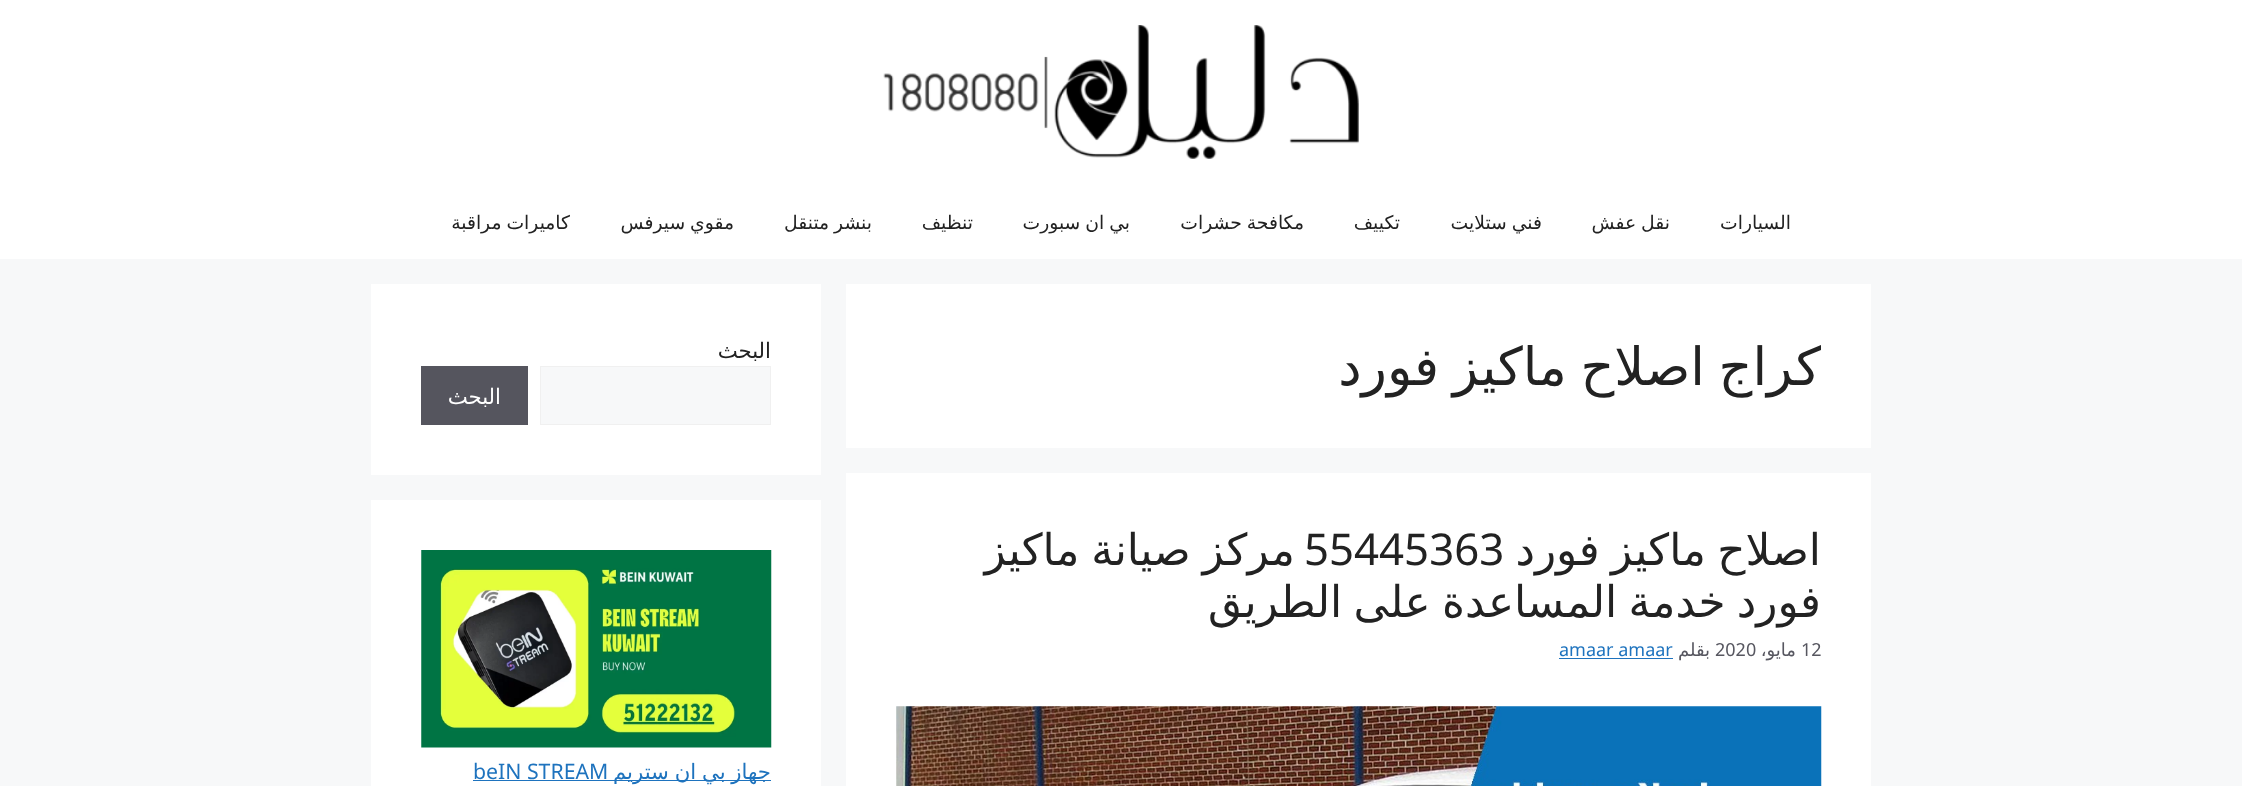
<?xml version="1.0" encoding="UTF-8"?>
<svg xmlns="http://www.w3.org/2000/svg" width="2242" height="786">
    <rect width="100%" height="100%" fill="#F7F8F9"/>
    <rect x="0" y="0" width="2242" height="259" fill="#FFFFFF"/>
    <image x="883" y="25" width="476" height="134" href="img_01.png"/>
    <text x="1791" y="229" font-family="DejaVu Sans" font-size="18.75" direction="rtl" fill="#222222">السيارات</text>
    <text x="1670" y="229" word-spacing="-1" font-family="DejaVu Sans" font-size="18.75" direction="rtl" fill="#222222">نقل عفش</text>
    <text x="1542" y="229" word-spacing="-1" font-family="DejaVu Sans" font-size="18.75" direction="rtl" fill="#222222">فني ستلايت</text>
    <text x="1400" y="229" font-family="DejaVu Sans" font-size="18.75" direction="rtl" fill="#222222">تكييف</text>
    <text x="1304" y="229" word-spacing="-1" font-family="DejaVu Sans" font-size="18.75" direction="rtl" fill="#222222">مكافحة حشرات</text>
    <text x="1130" y="229" word-spacing="-1" font-family="DejaVu Sans" font-size="18.75" direction="rtl" fill="#222222">بي ان سبورت</text>
    <text x="973" y="229" font-family="DejaVu Sans" font-size="18.75" direction="rtl" fill="#222222">تنظيف</text>
    <text x="872" y="229" word-spacing="-1" font-family="DejaVu Sans" font-size="18.75" direction="rtl" fill="#222222">بنشر متنقل</text>
    <text x="734" y="229" word-spacing="-1" font-family="DejaVu Sans" font-size="18.75" direction="rtl" fill="#222222">مقوي سيرفس</text>
    <text x="570" y="229" word-spacing="-1" font-family="DejaVu Sans" font-size="18.75" direction="rtl" fill="#222222">كاميرات مراقبة</text>
    <rect x="846" y="284" width="1025" height="164" fill="#FFFFFF"/>
    <text x="1821" y="385" word-spacing="-3" font-family="DejaVu Sans" font-size="52.5" direction="rtl" fill="#222222">كراج اصلاح ماكيز فورد</text>
    <rect x="846" y="473" width="1025" height="313" fill="#FFFFFF"/>
    <text x="1821" y="565" word-spacing="-2.5" font-family="DejaVu Sans" font-size="43.75" direction="rtl" fill="#222222">اصلاح ماكيز فورد</text>
    <text x="1304" y="565" font-family="Noto Sans" font-size="43.75" fill="#222222">55445363</text>
    <text x="1295" y="565" word-spacing="-2" font-family="DejaVu Sans" font-size="43.75" direction="rtl" fill="#222222">مركز صيانة ماكيز</text>
    <text x="1821" y="617" word-spacing="-2.5" font-family="DejaVu Sans" font-size="43.75" direction="rtl" fill="#222222">فورد خدمة المساعدة على الطريق</text>
    <text x="1801" y="656" font-family="Noto Sans" font-size="18" fill="#575760">12</text>
    <text x="1796" y="656" font-family="DejaVu Sans" font-size="18" direction="rtl" fill="#575760">مايو،</text>
    <text x="1715" y="656" font-family="Noto Sans" font-size="18" fill="#575760">2020</text>
    <text x="1710" y="656" font-family="DejaVu Sans" font-size="18" direction="rtl" fill="#575760">بقلم</text>
    <text x="1559" y="656" font-family="Noto Sans" font-size="18" fill="#1E73BE">amaar amaar</text>
    <rect x="1559" y="658" width="114" height="1" fill="#1E73BE"/>
    <image x="896" y="706" width="926" height="80" href="img_02.png"/>
    <rect x="371" y="284" width="450" height="191" fill="#FFFFFF"/>
    <text x="771" y="358" font-family="DejaVu Sans" font-size="21.25" direction="rtl" fill="#222222">البحث</text>
    <rect x="540.5" y="366.5" width="230" height="58" fill="#F7F8F9" stroke="#F0F0F0"/>
    <rect x="421" y="366" width="107" height="59" fill="#55555E"/>
    <text x="501" y="404" font-family="DejaVu Sans" font-size="21.25" direction="rtl" fill="#FFFFFF">البحث</text>
    <rect x="371" y="500" width="450" height="286" fill="#FFFFFF"/>
    <image x="421" y="550" width="351" height="198" href="img_03.png"/>
    <rect x="473" y="780" width="298" height="1" fill="#1E73BE"/>
    <text x="771" y="779" word-spacing="-1" font-family="DejaVu Sans" font-size="21.25" direction="rtl" fill="#1E73BE">جهاز بي ان ستريم</text>
    <text x="473" y="779" font-family="Noto Sans" font-size="21.25" fill="#1E73BE">beIN STREAM</text>
</svg>
